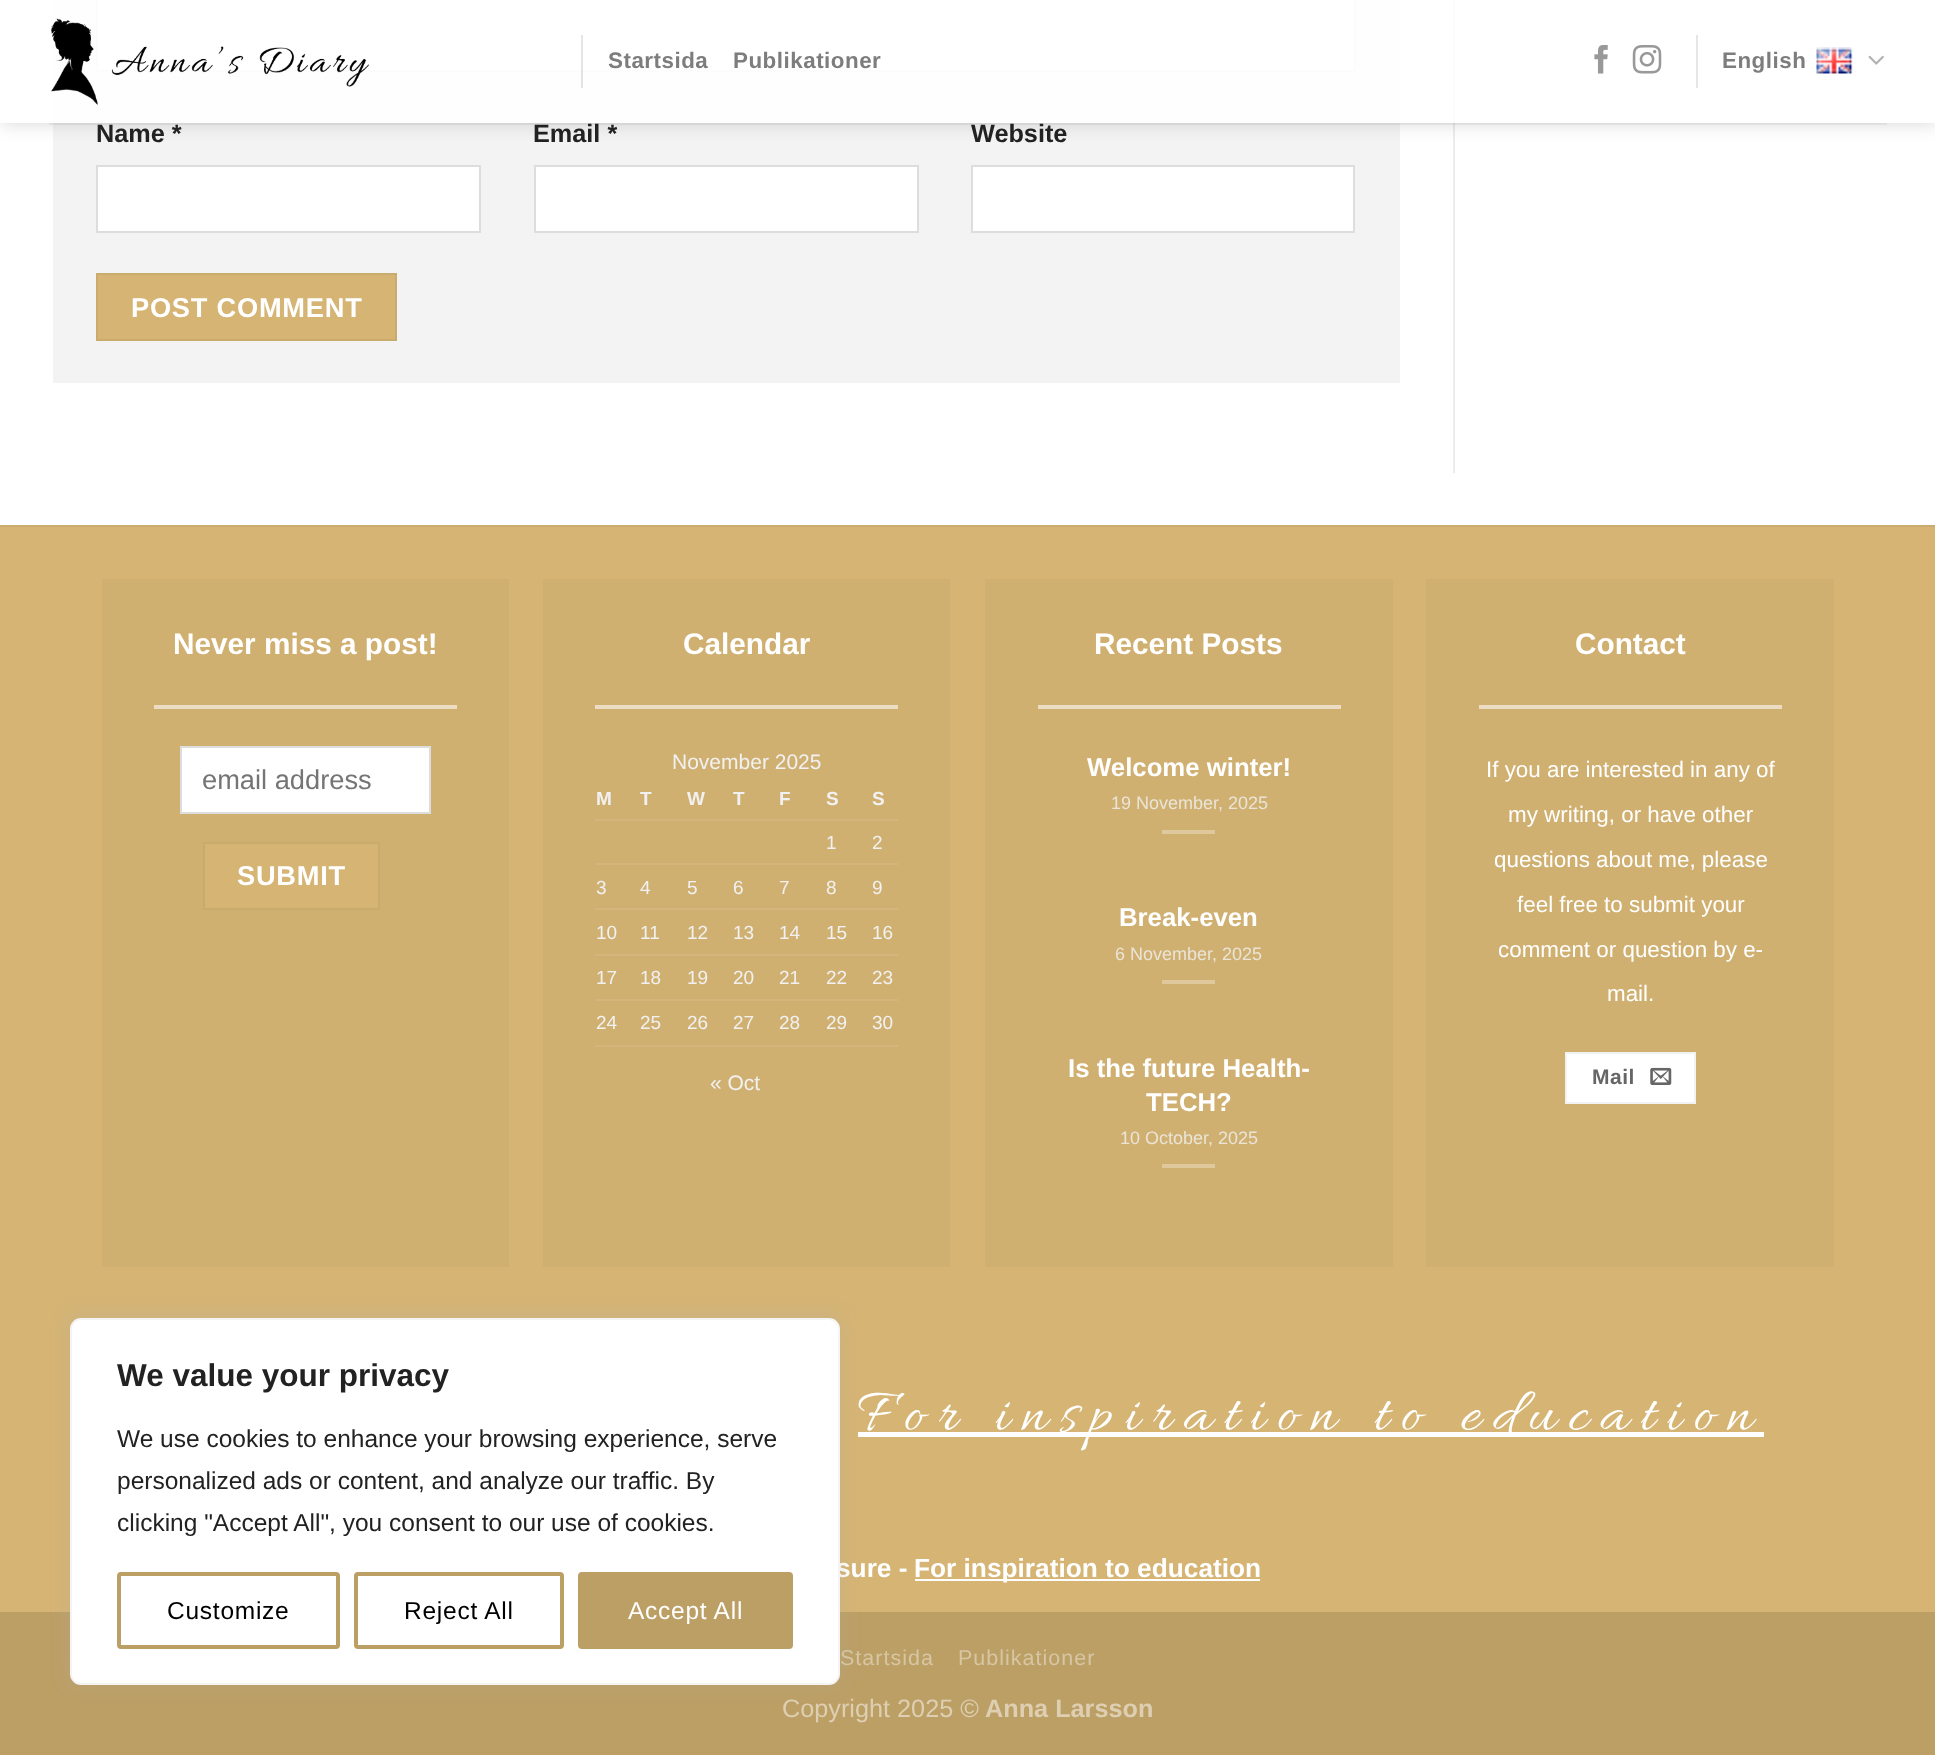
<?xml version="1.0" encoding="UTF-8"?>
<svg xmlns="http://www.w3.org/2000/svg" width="1935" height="1755">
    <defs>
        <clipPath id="clip1"><path d="M 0 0 H 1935 V 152 H 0 Z M 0 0 H 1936 V 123 H 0 Z" clip-rule="evenodd"/></clipPath>
        <filter id="blur1" x="-50%" y="-200%" width="200%" height="500%"><feGaussianBlur stdDeviation="9"/></filter>
    </defs>
    <rect width="100%" height="100%" fill="#FFFFFF"/>
    <rect x="53" y="0" width="1347" height="383" fill="#F3F3F3"/>
    <rect x="97" y="-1" width="1258" height="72" fill="#FFFFFF" stroke="#DDDDDD" stroke-width="2"/>
    <rect x="1453" y="0" width="2" height="473" fill="#ECECEC"/>
    <g clip-path="url(#clip1)">
        <rect x="2" y="2" width="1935" height="122" fill="#000000" fill-opacity="0.15" filter="url(#blur1)"/>
    </g>
    <rect x="0" y="0" width="1935" height="123" fill="#FFFFFF" fill-opacity="0.9"/>
    <image x="51" y="18" width="318" height="87" href="img_01.png"/>
    <rect x="581" y="35" width="2" height="53" fill="#000000" fill-opacity="0.1"/>
    <text x="608" y="68" font-family="Liberation Sans" font-size="22.4" font-weight="700" letter-spacing="0.5" fill="#7D7D7D">Startsida</text>
    <text x="733" y="68" font-family="Liberation Sans" font-size="22.4" font-weight="700" letter-spacing="0.5" fill="#7D7D7D">Publikationer</text>
    <image x="1594" y="45" width="14" height="29" href="img_02.png"/>
    <image x="1632" y="45" width="30" height="29" href="img_03.png"/>
    <rect x="1696" y="35" width="2" height="53" fill="#E6E6E6"/>
    <text x="1722" y="68" font-family="Liberation Sans" font-size="22.4" font-weight="700" letter-spacing="0.5" fill="#7D7D7D">English</text>
    <image x="1816" y="47" width="37" height="27" href="img_04.png"/>
    <image x="1868" y="55" width="16" height="10" href="img_05.png"/>
    <rect x="49" y="123" width="1838" height="2" fill="#777777" fill-opacity="0.1"/>
    <text x="96" y="142" font-family="Liberation Sans" font-size="25.25" font-weight="700" fill="#222222">Name *</text>
    <rect x="97" y="166" width="383" height="66" fill="#FFFFFF" stroke="#DDDDDD" stroke-width="2"/>
    <text x="533" y="142" font-family="Liberation Sans" font-size="25.25" font-weight="700" fill="#222222">Email *</text>
    <rect x="535" y="166" width="383" height="66" fill="#FFFFFF" stroke="#DDDDDD" stroke-width="2"/>
    <text x="971" y="142" font-family="Liberation Sans" font-size="25.25" font-weight="700" fill="#222222">Website</text>
    <rect x="972" y="166" width="382" height="66" fill="#FFFFFF" stroke="#DDDDDD" stroke-width="2"/>
    <rect x="97" y="274" width="299" height="66" fill="#D5B474" stroke="#CAAB6E" stroke-width="2"/>
    <text x="131" y="317" font-family="Liberation Sans" font-size="27.25" font-weight="700" letter-spacing="0.75" fill="#FFFFFF">POST COMMENT</text>
    <rect x="0" y="527" width="1935" height="1085" fill="#D5B474"/>
    <rect x="0" y="525" width="1935" height="2" fill="#CAAB6E"/>
    <rect x="102" y="579" width="407" height="688" fill="#D0B071"/>
    <text x="173" y="654" font-family="Liberation Sans" font-size="29.75" font-weight="700" fill="#FFFFFF">Never miss a post!</text>
    <rect x="154" y="705" width="303" height="4" fill="#EBDDC2"/>
    <rect x="181" y="747" width="249" height="66" fill="#FFFFFF" stroke="#DDDDDD" stroke-width="2"/>
    <text x="202" y="789" font-family="Liberation Sans" font-size="27.25" fill="#757575">email address</text>
    <rect x="204" y="843" width="175" height="66" fill="#D5B474" stroke="#CAAB6E" stroke-width="2"/>
    <text x="237" y="885" font-family="Liberation Sans" font-size="27.25" font-weight="700" letter-spacing="0.75" fill="#FFFFFF">SUBMIT</text>
    <rect x="543" y="579" width="407" height="688" fill="#D0B071"/>
    <text x="683" y="654" font-family="Liberation Sans" font-size="29.75" font-weight="700" fill="#FFFFFF">Calendar</text>
    <rect x="595" y="705" width="303" height="4" fill="#EBDDC2"/>
    <text x="672" y="769" font-family="Liberation Sans" font-size="21" fill="#F1F1F1">November 2025</text>
    <rect x="595" y="819" width="303" height="2" fill="#D4B67C"/>
    <text x="596" y="805" font-family="Liberation Sans" font-size="19" font-weight="700" letter-spacing="1" fill="#F1F1F1">M</text>
    <text x="640" y="805" font-family="Liberation Sans" font-size="19" font-weight="700" letter-spacing="1" fill="#F1F1F1">T</text>
    <text x="687" y="805" font-family="Liberation Sans" font-size="19" font-weight="700" letter-spacing="1" fill="#F1F1F1">W</text>
    <text x="733" y="805" font-family="Liberation Sans" font-size="19" font-weight="700" letter-spacing="1" fill="#F1F1F1">T</text>
    <text x="779" y="805" font-family="Liberation Sans" font-size="19" font-weight="700" letter-spacing="1" fill="#F1F1F1">F</text>
    <text x="826" y="805" font-family="Liberation Sans" font-size="19" font-weight="700" letter-spacing="1" fill="#F1F1F1">S</text>
    <text x="872" y="805" font-family="Liberation Sans" font-size="19" font-weight="700" letter-spacing="1" fill="#F1F1F1">S</text>
    <text x="826" y="849" font-family="Liberation Sans" font-size="19" fill="#F1F1F1">1</text>
    <text x="872" y="849" font-family="Liberation Sans" font-size="19" fill="#F1F1F1">2</text>
    <rect x="595" y="863" width="303" height="2" fill="#D4B67C"/>
    <rect x="595" y="908" width="303" height="2" fill="#D4B67C"/>
    <text x="596" y="894" font-family="Liberation Sans" font-size="19" fill="#F1F1F1">3</text>
    <text x="640" y="894" font-family="Liberation Sans" font-size="19" fill="#F1F1F1">4</text>
    <text x="687" y="894" font-family="Liberation Sans" font-size="19" fill="#F1F1F1">5</text>
    <text x="733" y="894" font-family="Liberation Sans" font-size="19" fill="#F1F1F1">6</text>
    <text x="779" y="894" font-family="Liberation Sans" font-size="19" fill="#F1F1F1">7</text>
    <text x="826" y="894" font-family="Liberation Sans" font-size="19" fill="#F1F1F1">8</text>
    <text x="872" y="894" font-family="Liberation Sans" font-size="19" fill="#F1F1F1">9</text>
    <rect x="595" y="954" width="303" height="2" fill="#D4B67C"/>
    <text x="596" y="939" font-family="Liberation Sans" font-size="19" fill="#F1F1F1">10</text>
    <text x="640" y="939" font-family="Liberation Sans" font-size="19" fill="#F1F1F1">11</text>
    <text x="687" y="939" font-family="Liberation Sans" font-size="19" fill="#F1F1F1">12</text>
    <text x="733" y="939" font-family="Liberation Sans" font-size="19" fill="#F1F1F1">13</text>
    <text x="779" y="939" font-family="Liberation Sans" font-size="19" fill="#F1F1F1">14</text>
    <text x="826" y="939" font-family="Liberation Sans" font-size="19" fill="#F1F1F1">15</text>
    <text x="872" y="939" font-family="Liberation Sans" font-size="19" fill="#F1F1F1">16</text>
    <rect x="595" y="999" width="303" height="2" fill="#D4B67C"/>
    <text x="596" y="984" font-family="Liberation Sans" font-size="19" fill="#F1F1F1">17</text>
    <text x="640" y="984" font-family="Liberation Sans" font-size="19" fill="#F1F1F1">18</text>
    <text x="687" y="984" font-family="Liberation Sans" font-size="19" fill="#F1F1F1">19</text>
    <text x="733" y="984" font-family="Liberation Sans" font-size="19" fill="#F1F1F1">20</text>
    <text x="779" y="984" font-family="Liberation Sans" font-size="19" fill="#F1F1F1">21</text>
    <text x="826" y="984" font-family="Liberation Sans" font-size="19" fill="#F1F1F1">22</text>
    <text x="872" y="984" font-family="Liberation Sans" font-size="19" fill="#F1F1F1">23</text>
    <rect x="595" y="1045" width="303" height="2" fill="#D4B67C"/>
    <text x="596" y="1029" font-family="Liberation Sans" font-size="19" fill="#F1F1F1">24</text>
    <text x="640" y="1029" font-family="Liberation Sans" font-size="19" fill="#F1F1F1">25</text>
    <text x="687" y="1029" font-family="Liberation Sans" font-size="19" fill="#F1F1F1">26</text>
    <text x="733" y="1029" font-family="Liberation Sans" font-size="19" fill="#F1F1F1">27</text>
    <text x="779" y="1029" font-family="Liberation Sans" font-size="19" fill="#F1F1F1">28</text>
    <text x="826" y="1029" font-family="Liberation Sans" font-size="19" fill="#F1F1F1">29</text>
    <text x="872" y="1029" font-family="Liberation Sans" font-size="19" fill="#F1F1F1">30</text>
    <text x="710" y="1090" font-family="Liberation Sans" font-size="21" fill="#F1F1F1">« Oct</text>
    <rect x="985" y="579" width="408" height="688" fill="#D0B071"/>
    <text x="1094" y="654" font-family="Liberation Sans" font-size="29.75" font-weight="700" fill="#FFFFFF">Recent Posts</text>
    <rect x="1038" y="705" width="303" height="4" fill="#EBDDC2"/>
    <text x="1087" y="776" font-family="Liberation Sans" font-size="25.75" font-weight="700" fill="#FFFFFF">Welcome winter!</text>
    <text x="1111" y="809" font-family="Liberation Sans" font-size="18" fill="#EAE4D7">19 November, 2025</text>
    <rect x="1162" y="830" width="53" height="4" fill="#DEC89C"/>
    <text x="1119" y="926" font-family="Liberation Sans" font-size="25.75" font-weight="700" fill="#FFFFFF">Break-even</text>
    <text x="1115" y="960" font-family="Liberation Sans" font-size="18" fill="#EAE4D7">6 November, 2025</text>
    <rect x="1162" y="980" width="53" height="4" fill="#DEC89C"/>
    <text x="1068" y="1077" font-family="Liberation Sans" font-size="25.75" font-weight="700" fill="#FFFFFF">Is the future Health-</text>
    <text x="1146" y="1111" font-family="Liberation Sans" font-size="25.75" font-weight="700" fill="#FFFFFF">TECH?</text>
    <text x="1120" y="1144" font-family="Liberation Sans" font-size="18" fill="#EAE4D7">10 October, 2025</text>
    <rect x="1162" y="1164" width="53" height="4" fill="#DEC89C"/>
    <rect x="1426" y="579" width="408" height="688" fill="#D0B071"/>
    <text x="1575" y="654" font-family="Liberation Sans" font-size="29.75" font-weight="700" fill="#FFFFFF">Contact</text>
    <rect x="1479" y="705" width="303" height="4" fill="#EBDDC2"/>
    <text x="1486" y="777" font-family="Liberation Sans" font-size="22.4" fill="#FFFFFF">If you are interested in any of</text>
    <text x="1508" y="822" font-family="Liberation Sans" font-size="22.4" fill="#FFFFFF">my writing, or have other</text>
    <text x="1494" y="867" font-family="Liberation Sans" font-size="22.4" fill="#FFFFFF">questions about me, please</text>
    <text x="1517" y="912" font-family="Liberation Sans" font-size="22.4" fill="#FFFFFF">feel free to submit your</text>
    <text x="1498" y="957" font-family="Liberation Sans" font-size="22.4" fill="#FFFFFF">comment or question by e-</text>
    <text x="1607" y="1001" font-family="Liberation Sans" font-size="22.4" fill="#FFFFFF">mail.</text>
    <rect x="1566" y="1053" width="129" height="50" fill="#FFFFFF" stroke="#F2F2F2" stroke-width="2"/>
    <text x="1592" y="1084" font-family="Liberation Sans" font-size="21" font-weight="700" letter-spacing="0.5" fill="#666666">Mail</text>
    <image x="1650" y="1067" width="22" height="18" href="img_06.png"/>
    <rect x="858" y="1432" width="906" height="5" fill="#FFFFFF"/>
    <text x="858" y="1429" font-family="Allura" font-size="62.5" letter-spacing="12.25" fill="#FFFFFF">For inspiration to education</text>
    <text x="836" y="1577" font-family="Liberation Sans" font-size="26.25" font-weight="700" fill="#FFFFFF">sure -</text>
    <rect x="915" y="1579" width="345" height="2" fill="#FFFFFF"/>
    <text x="914" y="1577" font-family="Liberation Sans" font-size="26.25" font-weight="700" fill="#FFFFFF">For inspiration to education</text>
    <rect x="0" y="1612" width="1935" height="143" fill="#BC9F65"/>
    <text x="840" y="1665" font-family="Liberation Sans" font-size="21.5" letter-spacing="1" fill="#D7C6A3">Startsida</text>
    <text x="958" y="1665" font-family="Liberation Sans" font-size="21.5" letter-spacing="1" fill="#D7C6A3">Publikationer</text>
    <text x="782" y="1717" font-family="Liberation Sans" font-size="25.25" fill="#DECFB2">Copyright 2025 ©</text>
    <text x="985" y="1717" font-family="Liberation Sans" font-size="25.25" font-weight="700" fill="#DECFB2">Anna Larsson</text>
    <rect x="70" y="1316" width="770" height="368" rx="11" fill="#ACABAB" fill-opacity="0.3" filter="url(#blur1)"/>
    <rect x="71" y="1319" width="768" height="365" rx="10" fill="#FFFFFF" stroke="#F4F4F4" stroke-width="2"/>
    <text x="117" y="1386" font-family="Liberation Sans" font-size="31.5" font-weight="700" fill="#222222">We value your privacy</text>
    <text font-family="Liberation Sans" font-size="24.5" fill="#222222">
        <tspan x="117" y="1447">We use cookies to enhance your browsing experience, serve</tspan>
        <tspan x="117" y="1489">personalized ads or content, and analyze our traffic. By</tspan>
        <tspan x="117" y="1531">clicking "Accept All", you consent to our use of cookies.</tspan>
    </text>
    <rect x="119" y="1574" width="219" height="73" rx="2" fill="none" stroke="#BC9F65" stroke-width="4"/>
    <text x="167" y="1619" font-family="Liberation Sans" font-size="24.5" letter-spacing="0.75" fill="#000000">Customize</text>
    <rect x="356" y="1574" width="206" height="73" rx="2" fill="none" stroke="#BC9F65" stroke-width="4"/>
    <text x="404" y="1619" font-family="Liberation Sans" font-size="24.5" letter-spacing="0.75" fill="#000000">Reject All</text>
    <rect x="580" y="1574" width="211" height="73" rx="2" fill="#BC9F65" stroke="#BC9F65" stroke-width="4"/>
    <text x="628" y="1619" font-family="Liberation Sans" font-size="24.5" letter-spacing="0.75" fill="#FFFFFF">Accept All</text>
</svg>
